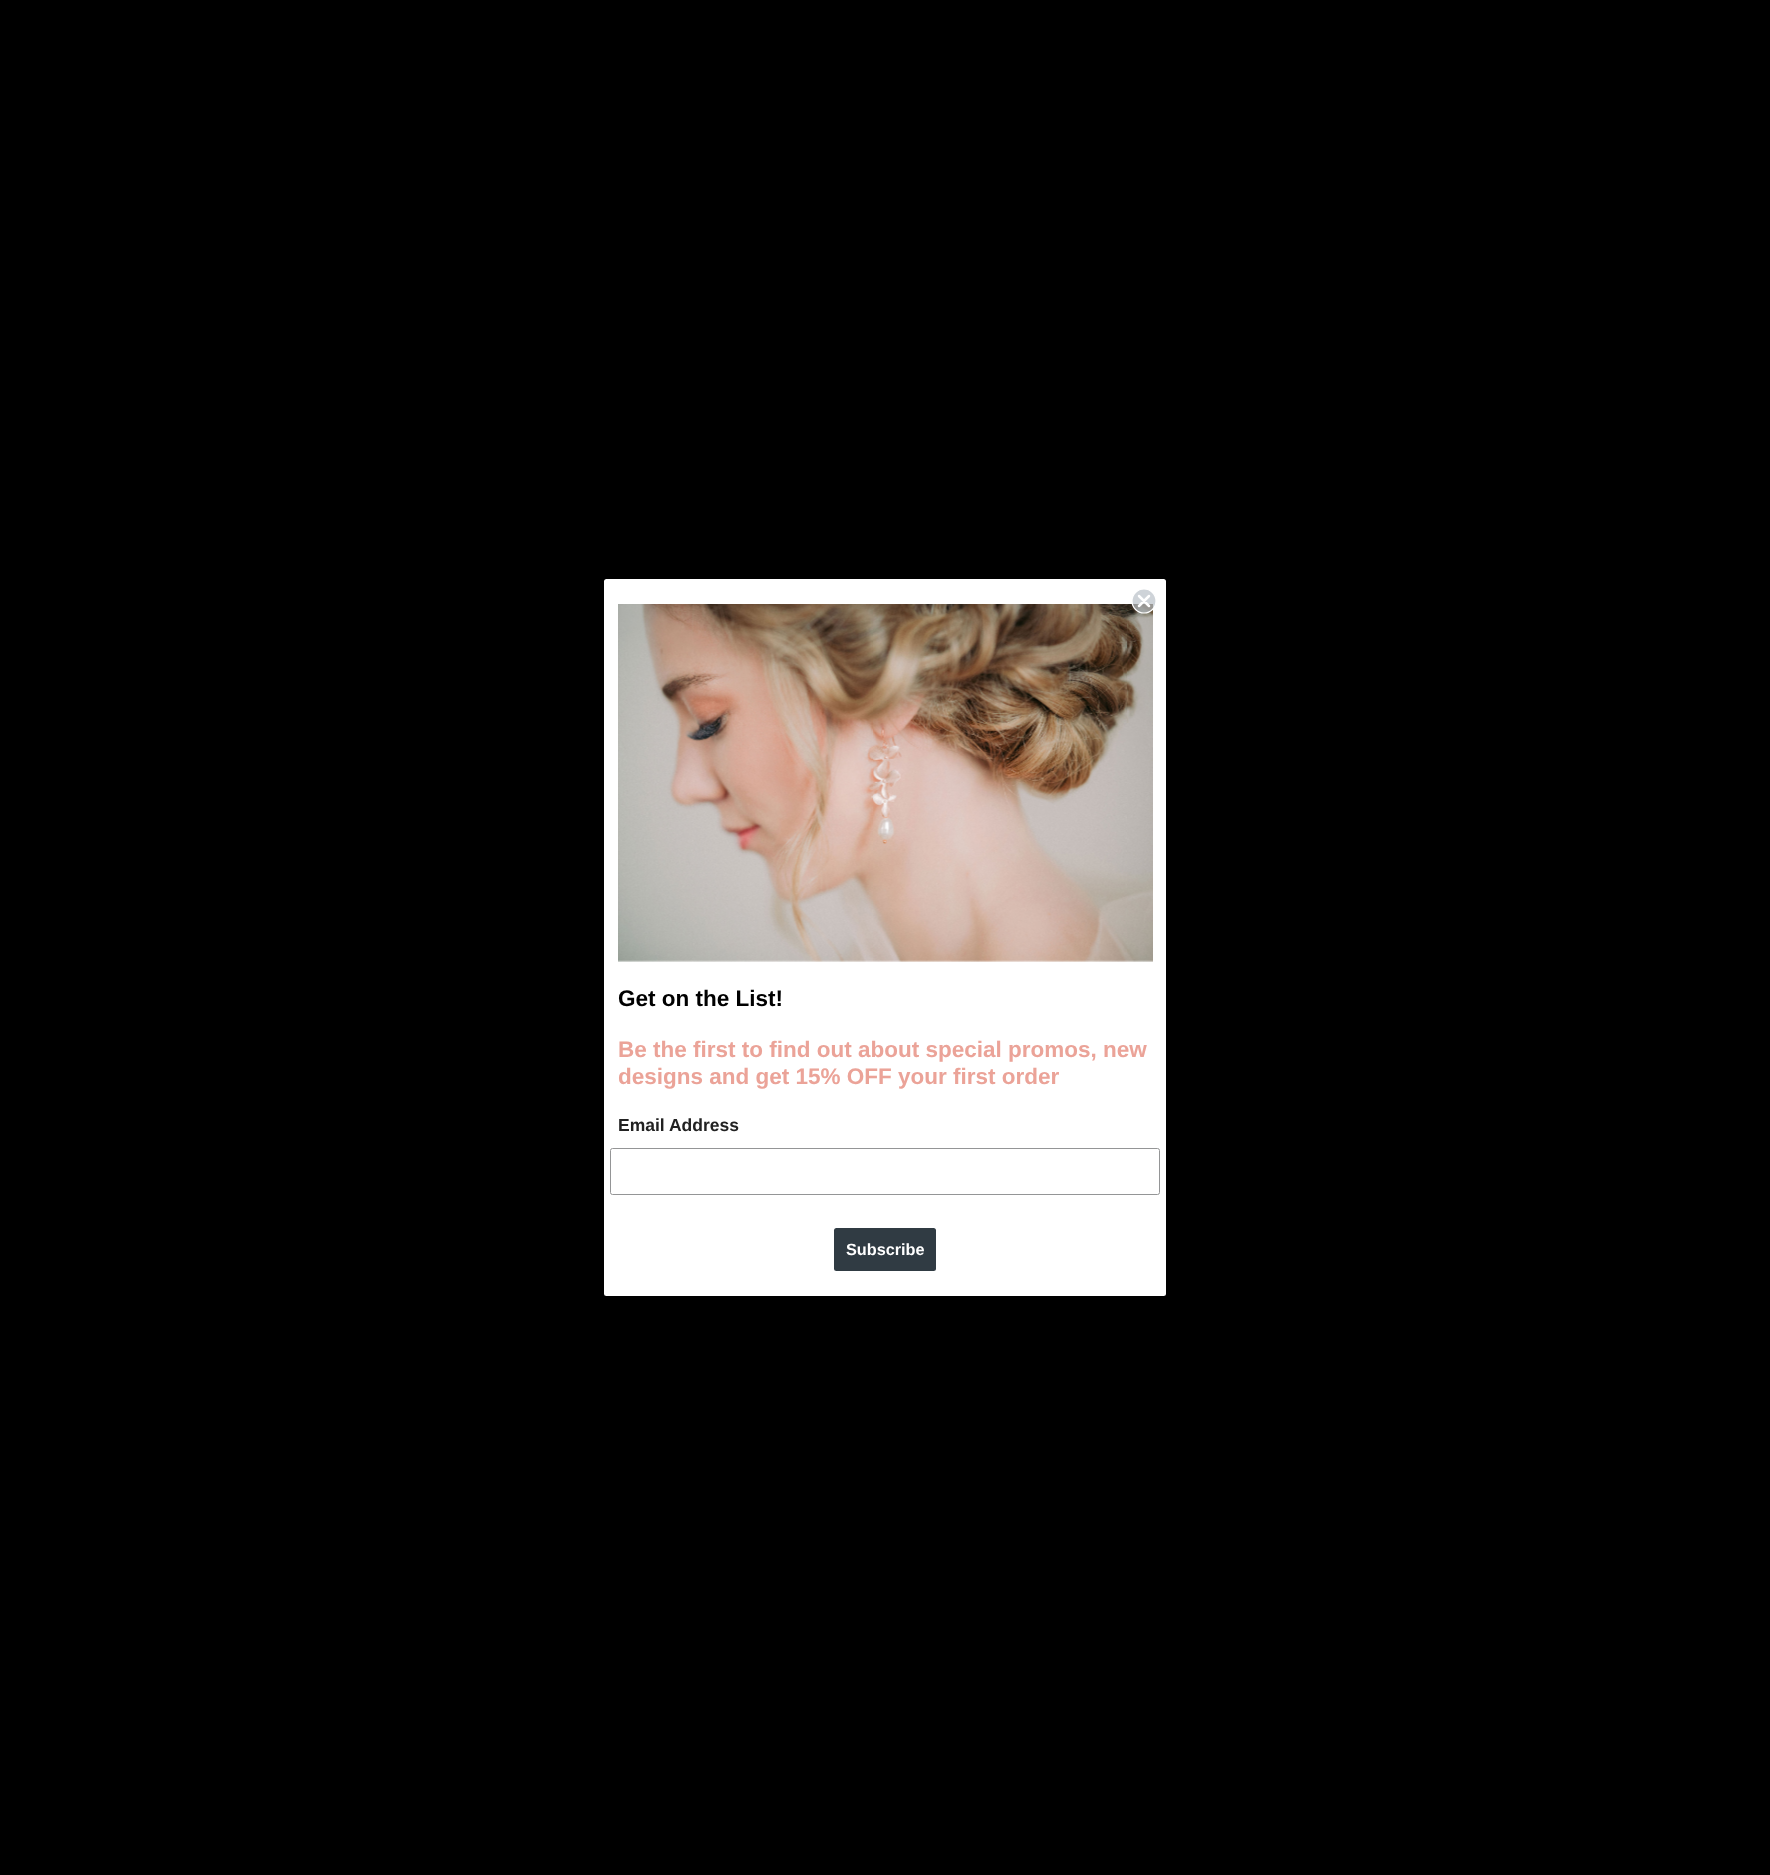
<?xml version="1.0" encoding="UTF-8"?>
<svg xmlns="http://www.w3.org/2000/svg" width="1770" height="1875">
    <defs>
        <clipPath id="clip1"><rect x="1131" y="589" width="25" height="25"/></clipPath>
    </defs>
    <rect width="100%" height="100%" fill="#000000"/>
    <rect x="604" y="579" width="562" height="717" rx="2.5" fill="#FFFFFF"/>
    <image x="618" y="604" width="535" height="358" href="img_01.png"/>
    <circle cx="1144" cy="601" r="12" fill="#B4BBC3" fill-opacity="0.65"/>
    <g clip-path="url(#clip1)">
        <circle cx="1144" cy="601" r="12" fill="none" stroke="#FFFFFF" stroke-width="1.2"/>
    </g>
    <path d="M 1139 596 L 1149 606 M 1139 606 L 1149 596 Z" fill="none" stroke="#FFFFFF" stroke-width="2.5" stroke-linecap="round" stroke-linejoin="round"/>
    <text x="618" y="1006" font-family="Liberation Sans" font-size="22.5" font-weight="700" fill="#000000">Get on the List!</text>
    <text font-family="Liberation Sans" font-size="22.5" font-weight="700" fill="#EBA398">
        <tspan x="618" y="1057">Be the first to find out about special promos, new</tspan>
        <tspan x="618" y="1084">designs and get 15% OFF your first order</tspan>
    </text>
    <text x="618" y="1131" font-family="Liberation Sans" font-size="17.5" font-weight="700" fill="#222222">Email Address</text>
    <rect x="610.5" y="1148.5" width="549" height="46" rx="2" fill="none" stroke="#949596"/>
    <rect x="834" y="1228" width="102" height="43" rx="2.5" fill="#303B43"/>
    <text x="846" y="1255" font-family="Liberation Sans" font-size="16.25" font-weight="700" fill="#FFFFFF">Subscribe</text>
</svg>
